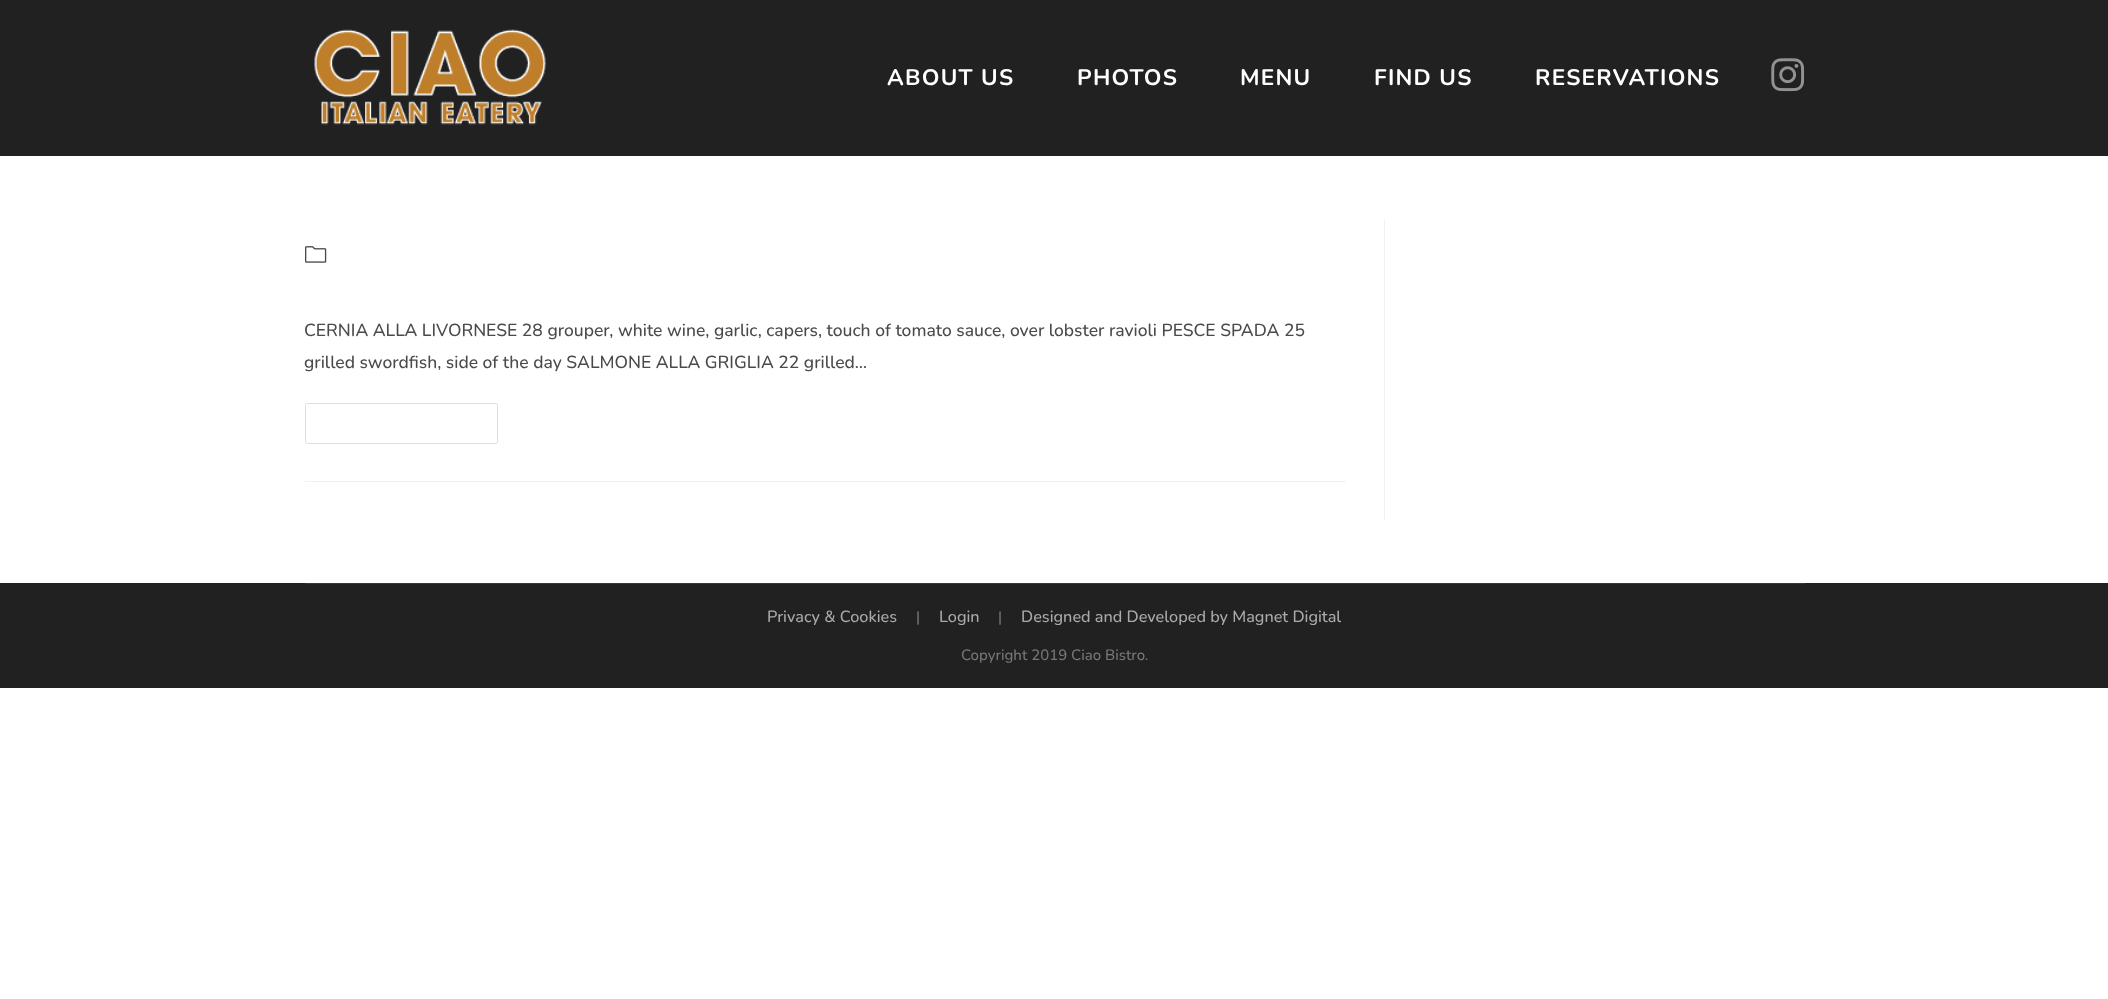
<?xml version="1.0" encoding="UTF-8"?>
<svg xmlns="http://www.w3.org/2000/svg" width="2108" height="999">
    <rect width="100%" height="100%" fill="#FFFFFF"/>
    <rect x="0" y="0" width="2108" height="156" fill="#212121"/>
    <image x="314" y="29" width="232" height="96" href="img_01.png"/>
    <text x="887" y="85" font-family="Nunito" font-size="22.5" font-weight="700" letter-spacing="1.25" fill="#FFFFFF">ABOUT US</text>
    <text x="1077" y="85" font-family="Nunito" font-size="22.5" font-weight="700" letter-spacing="1.25" fill="#FFFFFF">PHOTOS</text>
    <text x="1240" y="85" font-family="Nunito" font-size="22.5" font-weight="700" letter-spacing="1.25" fill="#FFFFFF">MENU</text>
    <text x="1374" y="85" font-family="Nunito" font-size="22.5" font-weight="700" letter-spacing="1.25" fill="#FFFFFF">FIND US</text>
    <text x="1535" y="85" font-family="Nunito" font-size="22.5" font-weight="700" letter-spacing="1.25" fill="#FFFFFF">RESERVATIONS</text>
    <image x="1771" y="58" width="34" height="34" href="img_02.png"/>
    <rect x="1384" y="219" width="1" height="301" fill="#F1F1F1"/>
    <rect x="305" y="481" width="1041" height="1" fill="#F1F1F1"/>
    <image x="305" y="246" width="22" height="17" href="img_03.png"/>
    <text font-family="Nunito" font-size="17.5" font-weight="500" fill="#4A4A4A">
        <tspan x="304" y="336">CERNIA ALLA LIVORNESE 28 grouper, white wine, garlic, capers, touch of tomato sauce, over lobster ravioli PESCE SPADA 25</tspan>
        <tspan x="304" y="368">grilled swordfish, side of the day SALMONE ALLA GRIGLIA 22 grilled…</tspan>
    </text>
    <rect x="305.5" y="403.5" width="192" height="40" rx="2" fill="none" stroke="#DDDDDD"/>
    <rect x="0" y="583" width="2108" height="105" fill="#212121"/>
    <rect x="305" y="583" width="1500" height="1" fill="#373737"/>
    <text x="767" y="622" font-family="Nunito" font-size="16.25" font-weight="500" fill="#AAAAAA">Privacy &amp; Cookies</text>
    <text x="916" y="622" font-family="Nunito" font-size="15" font-weight="500" fill="#777777">|</text>
    <text x="939" y="622" font-family="Nunito" font-size="16.25" font-weight="500" fill="#AAAAAA">Login</text>
    <text x="998" y="622" font-family="Nunito" font-size="15" font-weight="500" fill="#777777">|</text>
    <text x="1021" y="622" font-family="Nunito" font-size="16.25" font-weight="500" fill="#AAAAAA">Designed and Developed by Magnet Digital</text>
    <text x="961" y="660" font-family="Nunito" font-size="15" font-weight="500" fill="#777777">Copyright 2019 Ciao Bistro.</text>
</svg>
